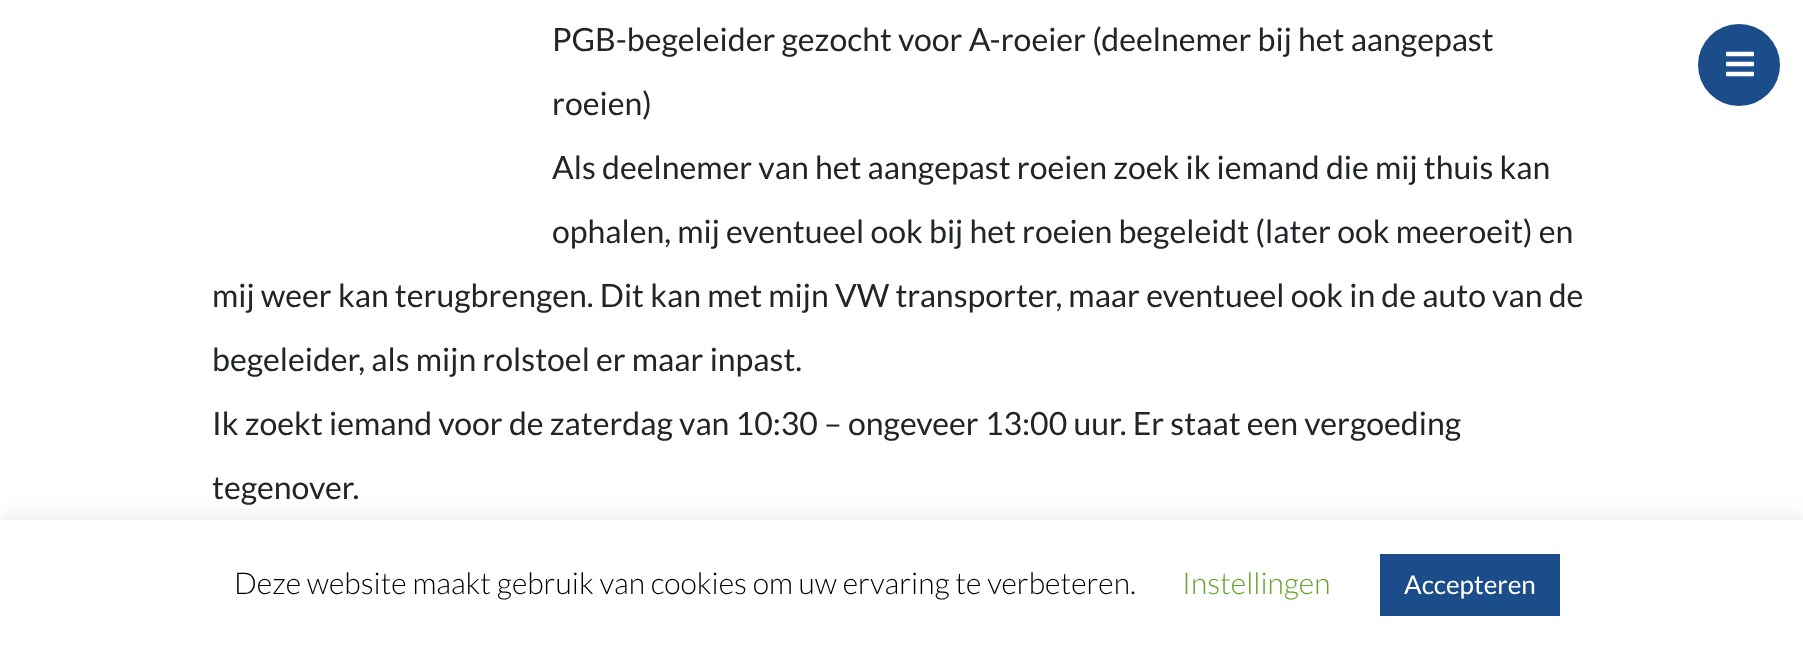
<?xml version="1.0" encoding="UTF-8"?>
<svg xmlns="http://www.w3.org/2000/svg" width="1803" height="649">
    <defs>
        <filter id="blur1" x="-50%" y="-200%" width="200%" height="500%"><feGaussianBlur stdDeviation="10"/></filter>
    </defs>
    <rect width="100%" height="100%" fill="#FFFFFF"/>
    <text x="552" y="51" font-family="Lato" font-size="32" fill="#212529">PGB-begeleider gezocht voor A-roeier (deelnemer bij het aangepast</text>
    <text x="552" y="115" font-family="Lato" font-size="32" fill="#212529">roeien)</text>
    <text x="552" y="179" font-family="Lato" font-size="32" fill="#212529">Als deelnemer van het aangepast roeien zoek ik iemand die mij thuis kan</text>
    <text x="552" y="243" font-family="Lato" font-size="32" fill="#212529">ophalen, mij eventueel ook bij het roeien begeleidt (later ook meeroeit) en</text>
    <text x="212" y="307" font-family="Lato" font-size="32" fill="#212529">mij weer kan terugbrengen. Dit kan met mijn VW transporter, maar eventueel ook in de auto van de</text>
    <text x="212" y="371" font-family="Lato" font-size="32" fill="#212529">begeleider, als mijn rolstoel er maar inpast.</text>
    <text x="212" y="435" font-family="Lato" font-size="32" fill="#212529">Ik zoekt iemand voor de zaterdag van 10:30 – ongeveer 13:00 uur. Er staat een vergoeding</text>
    <text x="212" y="499" font-family="Lato" font-size="32" fill="#212529">tegenover.</text>
    <circle cx="1739" cy="65" r="41" fill="#1A4D8A"/>
    <image x="1726" y="51" width="28" height="26" href="img_01.png"/>
    <rect x="0" y="518" width="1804" height="130" fill="#ACABAB" fill-opacity="0.3" filter="url(#blur1)"/>
    <rect x="0" y="520" width="1803" height="129" fill="#FFFFFF"/>
    <text x="234" y="594" font-family="Lato" font-size="30" font-weight="300" fill="#000000">Deze website maakt gebruik van cookies om uw ervaring te verbeteren.</text>
    <text x="1182" y="594" font-family="Lato" font-size="30" font-weight="300" fill="#62A329">Instellingen</text>
    <rect x="1380" y="554" width="180" height="62" fill="#1A4D8A"/>
    <text x="1404" y="594" font-family="Lato" font-size="26" fill="#FFFFFF">Accepteren</text>
</svg>
